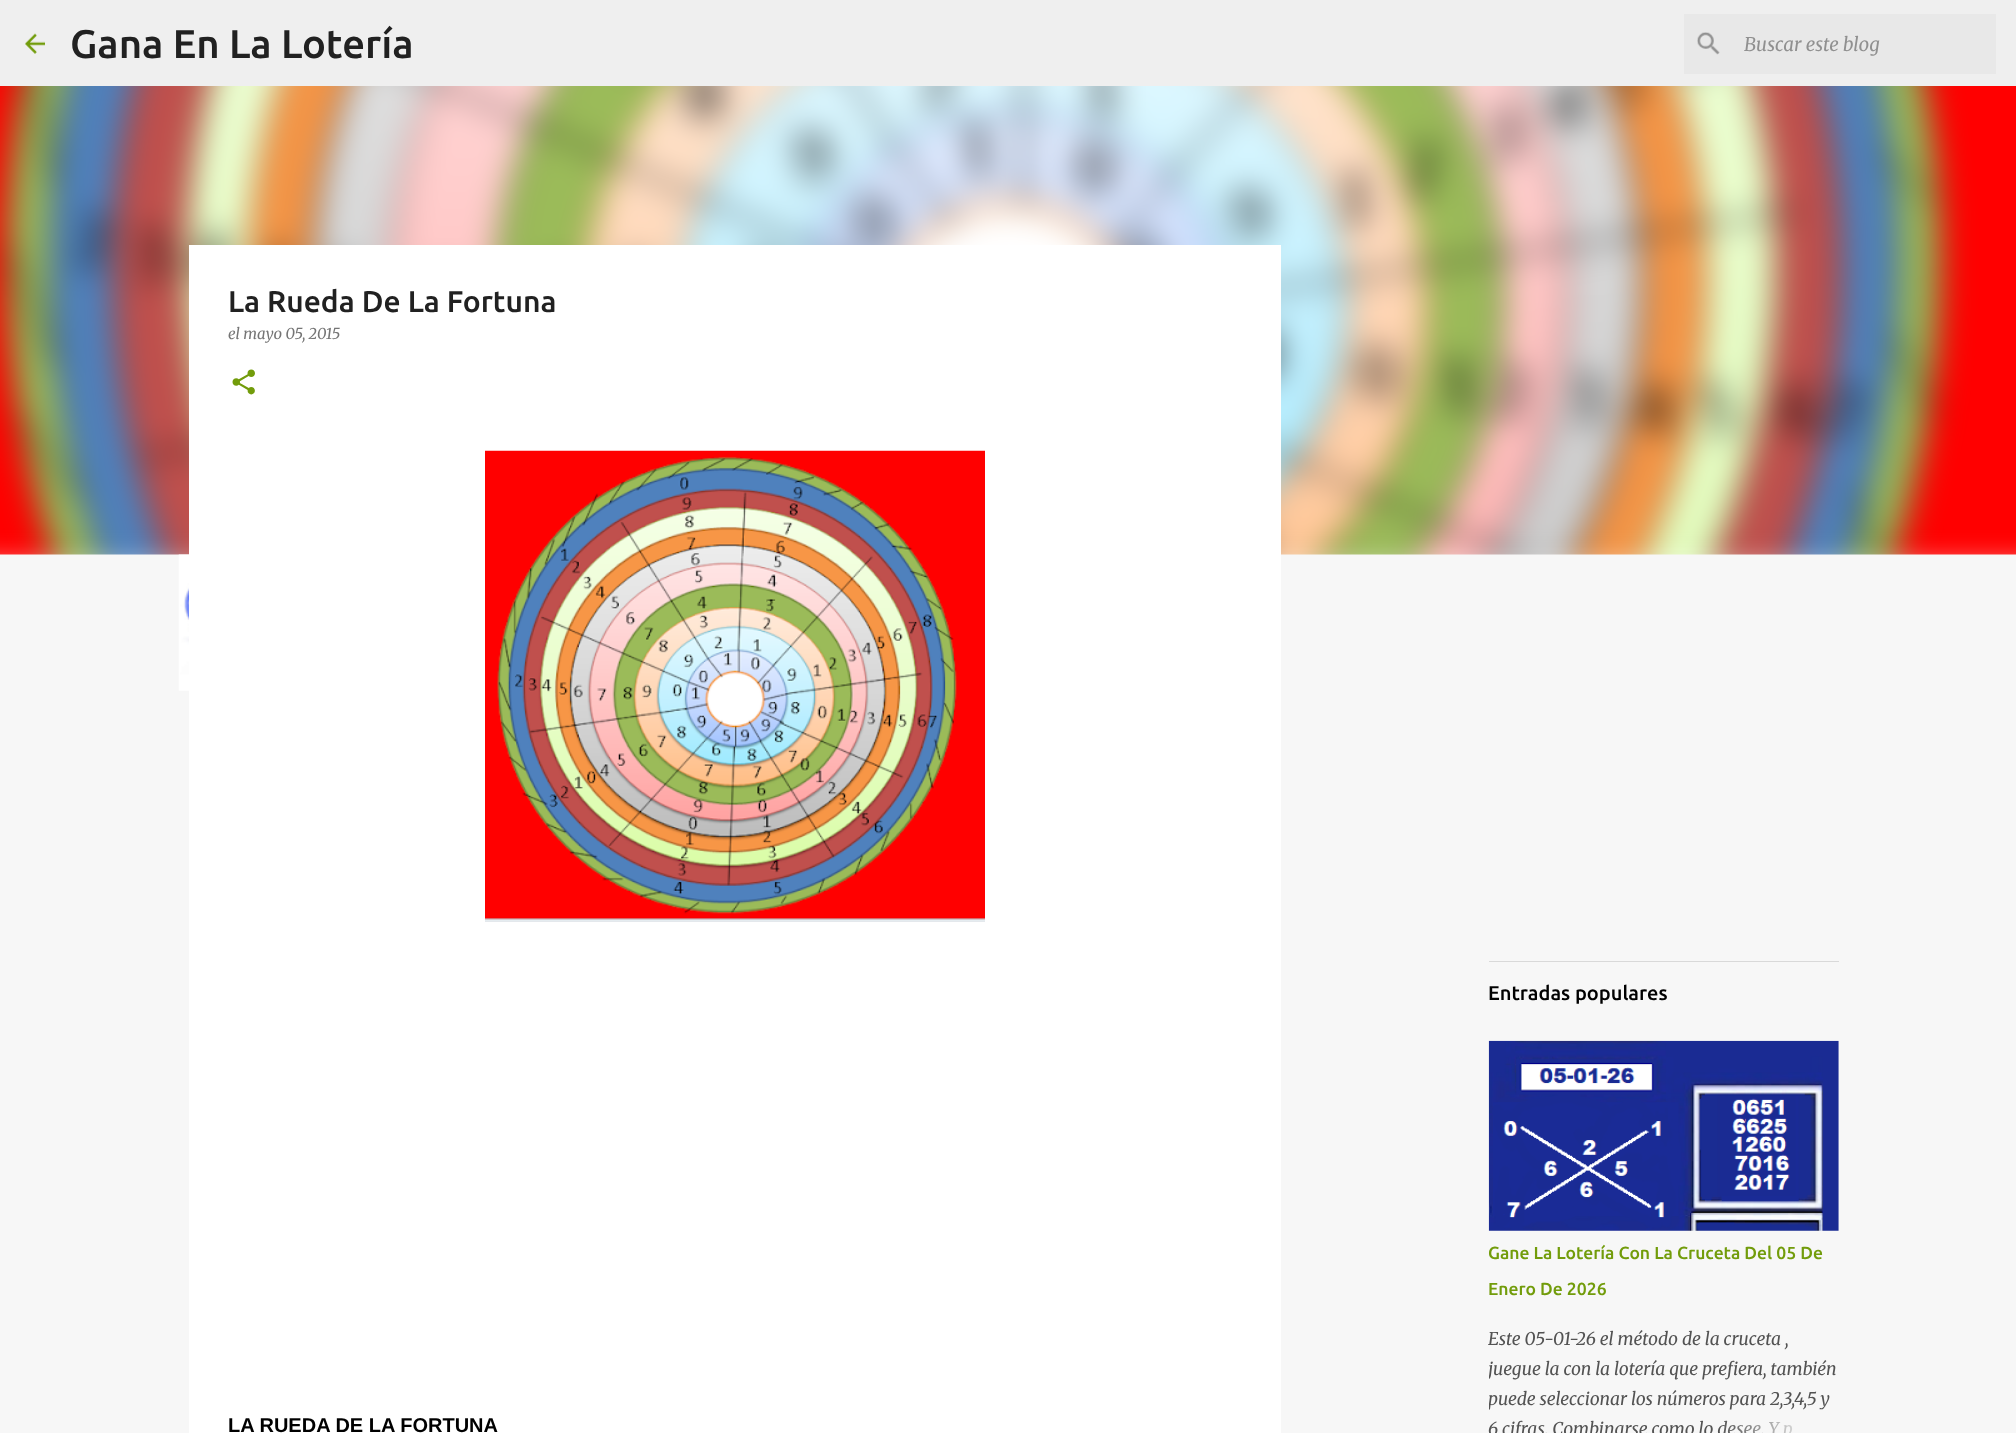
<?xml version="1.0" encoding="UTF-8"?>
<svg xmlns="http://www.w3.org/2000/svg" width="2016" height="1433">
    <defs>
        <clipPath id="clip1"><rect x="1489" y="1324" width="350" height="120"/></clipPath>
        <linearGradient id="g1" gradientUnits="userSpaceOnUse" x1="1839" y1="1429" x2="1719" y2="1429"><stop offset="0" stop-color="#F7F7F7"/><stop offset="0.2" stop-color="#F7F7F7"/><stop offset="1" stop-color="#F7F7F7" stop-opacity="0"/></linearGradient>
    </defs>
    <rect width="100%" height="100%" fill="#F7F7F7"/>
    <rect x="0" y="0" width="2016" height="86" fill="#EFEFEF"/>
    <image x="25" y="33" width="20" height="21" href="img_01.png"/>
    <text x="70" y="58" font-family="Ubuntu" font-size="40" font-weight="500" fill="#212121">Gana En La Lotería</text>
    <rect x="1684" y="14" width="312" height="60" fill="#E8E8E8"/>
    <image x="1697" y="32" width="23" height="23" href="img_02.png"/>
    <text x="1744" y="51" font-family="Merriweather" font-size="18.75" font-style="italic" fill="#909090">Buscar este blog</text>
    <image x="0" y="86" width="2016" height="469" href="img_07.png"/>
    <image x="178" y="554" width="11" height="137" href="img_03.png"/>
    <rect x="189" y="245" width="1092" height="1188" fill="#FFFFFF"/>
    <text x="228" y="312" font-family="Ubuntu" font-size="30" font-weight="500" fill="#212121">La Rueda De La Fortuna</text>
    <text x="228" y="339" font-family="Merriweather" font-size="15" font-style="italic" fill="#757575">el mayo 05, 2015</text>
    <image x="232" y="369" width="23" height="26" href="img_04.png"/>
    <image x="485" y="450" width="500" height="472" href="img_05.png"/>
    <text x="228" y="1432" font-family="Liberation Sans" font-size="20" font-weight="700" fill="#000000">LA RUEDA DE LA FORTUNA</text>
    <rect x="1489" y="961" width="350" height="1" fill="#D9D9D9"/>
    <text x="1488" y="1000" font-family="Ubuntu" font-size="20" font-weight="500" fill="#000000">Entradas populares</text>
    <image x="1488" y="1040" width="351" height="191" href="img_06.png"/>
    <text x="1488" y="1259" font-family="Ubuntu" font-size="17.5" font-weight="500" fill="#729C0B">Gane La Lotería Con La Cruceta Del 05 De</text>
    <text x="1488" y="1295" font-family="Ubuntu" font-size="17.5" font-weight="500" fill="#729C0B">Enero De 2026</text>
    <text x="1488" y="1345" font-family="Merriweather" font-size="17.5" font-style="italic" fill="#535353">Este 05-01-26 el método de la cruceta ,</text>
    <g clip-path="url(#clip1)">
        <text font-family="Merriweather" font-size="17.5" font-style="italic" fill="#535353">
            <tspan x="1488" y="1375">juegue la con la lotería que prefiera, también</tspan>
            <tspan x="1488" y="1405">puede seleccionar los números para 2,3,4,5 y</tspan>
        </text>
    </g>
    <text x="1488" y="1435" font-family="Merriweather" font-size="17.5" font-style="italic" fill="#535353">6 cifras. Combinarse como lo desee. Y p</text>
    <rect x="1721" y="1420" width="72" height="13" fill="url(#g1)"/>
</svg>
